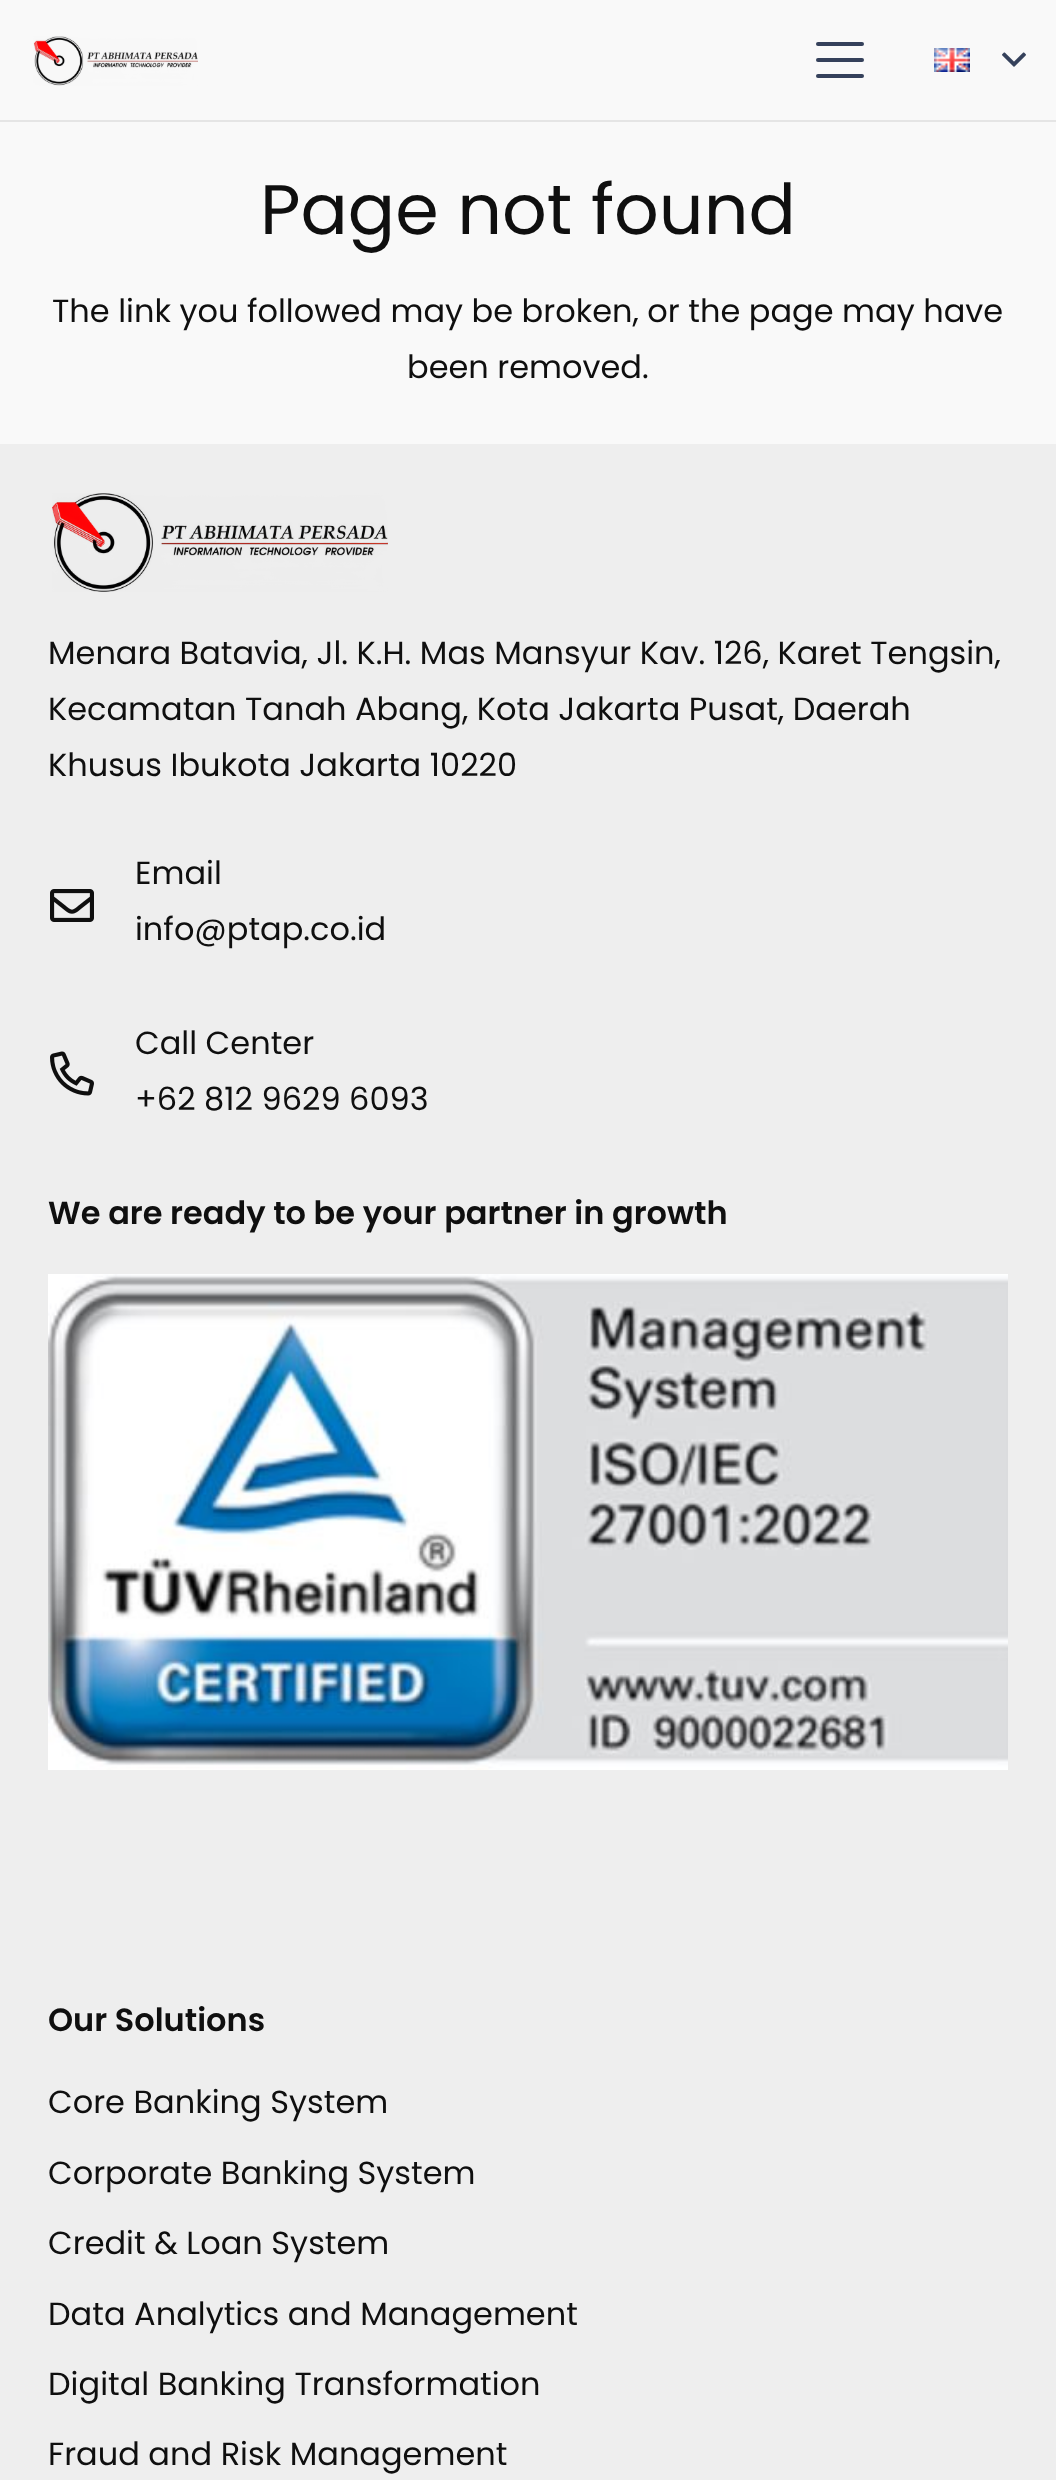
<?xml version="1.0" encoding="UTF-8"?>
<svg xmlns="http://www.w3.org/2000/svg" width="1056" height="2480">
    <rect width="100%" height="100%" fill="#F9F9F9"/>
    <rect x="0" y="120" width="1056" height="2" fill="#E5E5E5"/>
    <image x="33" y="36" width="165" height="50" href="img_01.png"/>
    <rect x="816" y="58" width="48" height="4" rx="2" fill="#35415B"/>
    <rect x="816" y="42" width="48" height="4" rx="2" fill="#35415B"/>
    <rect x="816" y="74" width="48" height="4" rx="2" fill="#35415B"/>
    <image x="934" y="48" width="36" height="24" href="img_02.png"/>
    <image x="1002" y="52" width="24" height="15" href="img_03.png"/>
    <text x="260" y="234" font-family="Poppins" font-size="70" fill="#0F0F0F">Page not found</text>
    <text x="52" y="322" font-family="Poppins" font-size="32" fill="#0F0F0F">The link you followed may be broken, or the page may have</text>
    <text x="407" y="378" font-family="Poppins" font-size="32" fill="#0F0F0F">been removed.</text>
    <rect x="0" y="444" width="1056" height="2036" fill="#EEEEEE"/>
    <image x="52" y="493" width="336" height="99" href="img_04.png"/>
    <text font-family="Poppins" font-size="32" fill="#0F0F0F">
        <tspan x="48" y="664">Menara Batavia, Jl. K.H. Mas Mansyur Kav. 126, Karet Tengsin,</tspan>
        <tspan x="48" y="720">Kecamatan Tanah Abang, Kota Jakarta Pusat, Daerah</tspan>
        <tspan x="48" y="776">Khusus Ibukota Jakarta 10220</tspan>
    </text>
    <image x="50" y="889" width="44" height="33" href="img_05.png"/>
    <text font-family="Poppins" font-size="32" fill="#0F0F0F">
        <tspan x="135" y="884">Email</tspan>
        <tspan x="135" y="940">info@ptap.co.id</tspan>
    </text>
    <image x="50" y="1051" width="44" height="45" href="img_06.png"/>
    <text font-family="Poppins" font-size="32" fill="#0F0F0F">
        <tspan x="135" y="1054">Call Center</tspan>
        <tspan x="135" y="1110">+62 812 9629 6093</tspan>
    </text>
    <text x="48" y="1224" font-family="Poppins" font-size="32" font-weight="600" fill="#0F0F0F">We are ready to be your partner in growth</text>
    <image x="48" y="1274" width="960" height="496" href="img_07.png"/>
    <text x="48" y="2031" font-family="Poppins" font-size="32" font-weight="600" fill="#0F0F0F">Our Solutions</text>
    <text x="48" y="2113" font-family="Poppins" font-size="32" fill="#0F0F0F">Core Banking System</text>
    <text x="48" y="2184" font-family="Poppins" font-size="32" fill="#0F0F0F">Corporate Banking System</text>
    <text x="48" y="2254" font-family="Poppins" font-size="32" fill="#0F0F0F">Credit &amp; Loan System</text>
    <text x="48" y="2325" font-family="Poppins" font-size="32" fill="#0F0F0F">Data Analytics and Management</text>
    <text x="48" y="2395" font-family="Poppins" font-size="32" fill="#0F0F0F">Digital Banking Transformation</text>
    <text x="48" y="2465" font-family="Poppins" font-size="32" fill="#0F0F0F">Fraud and Risk Management</text>
</svg>
